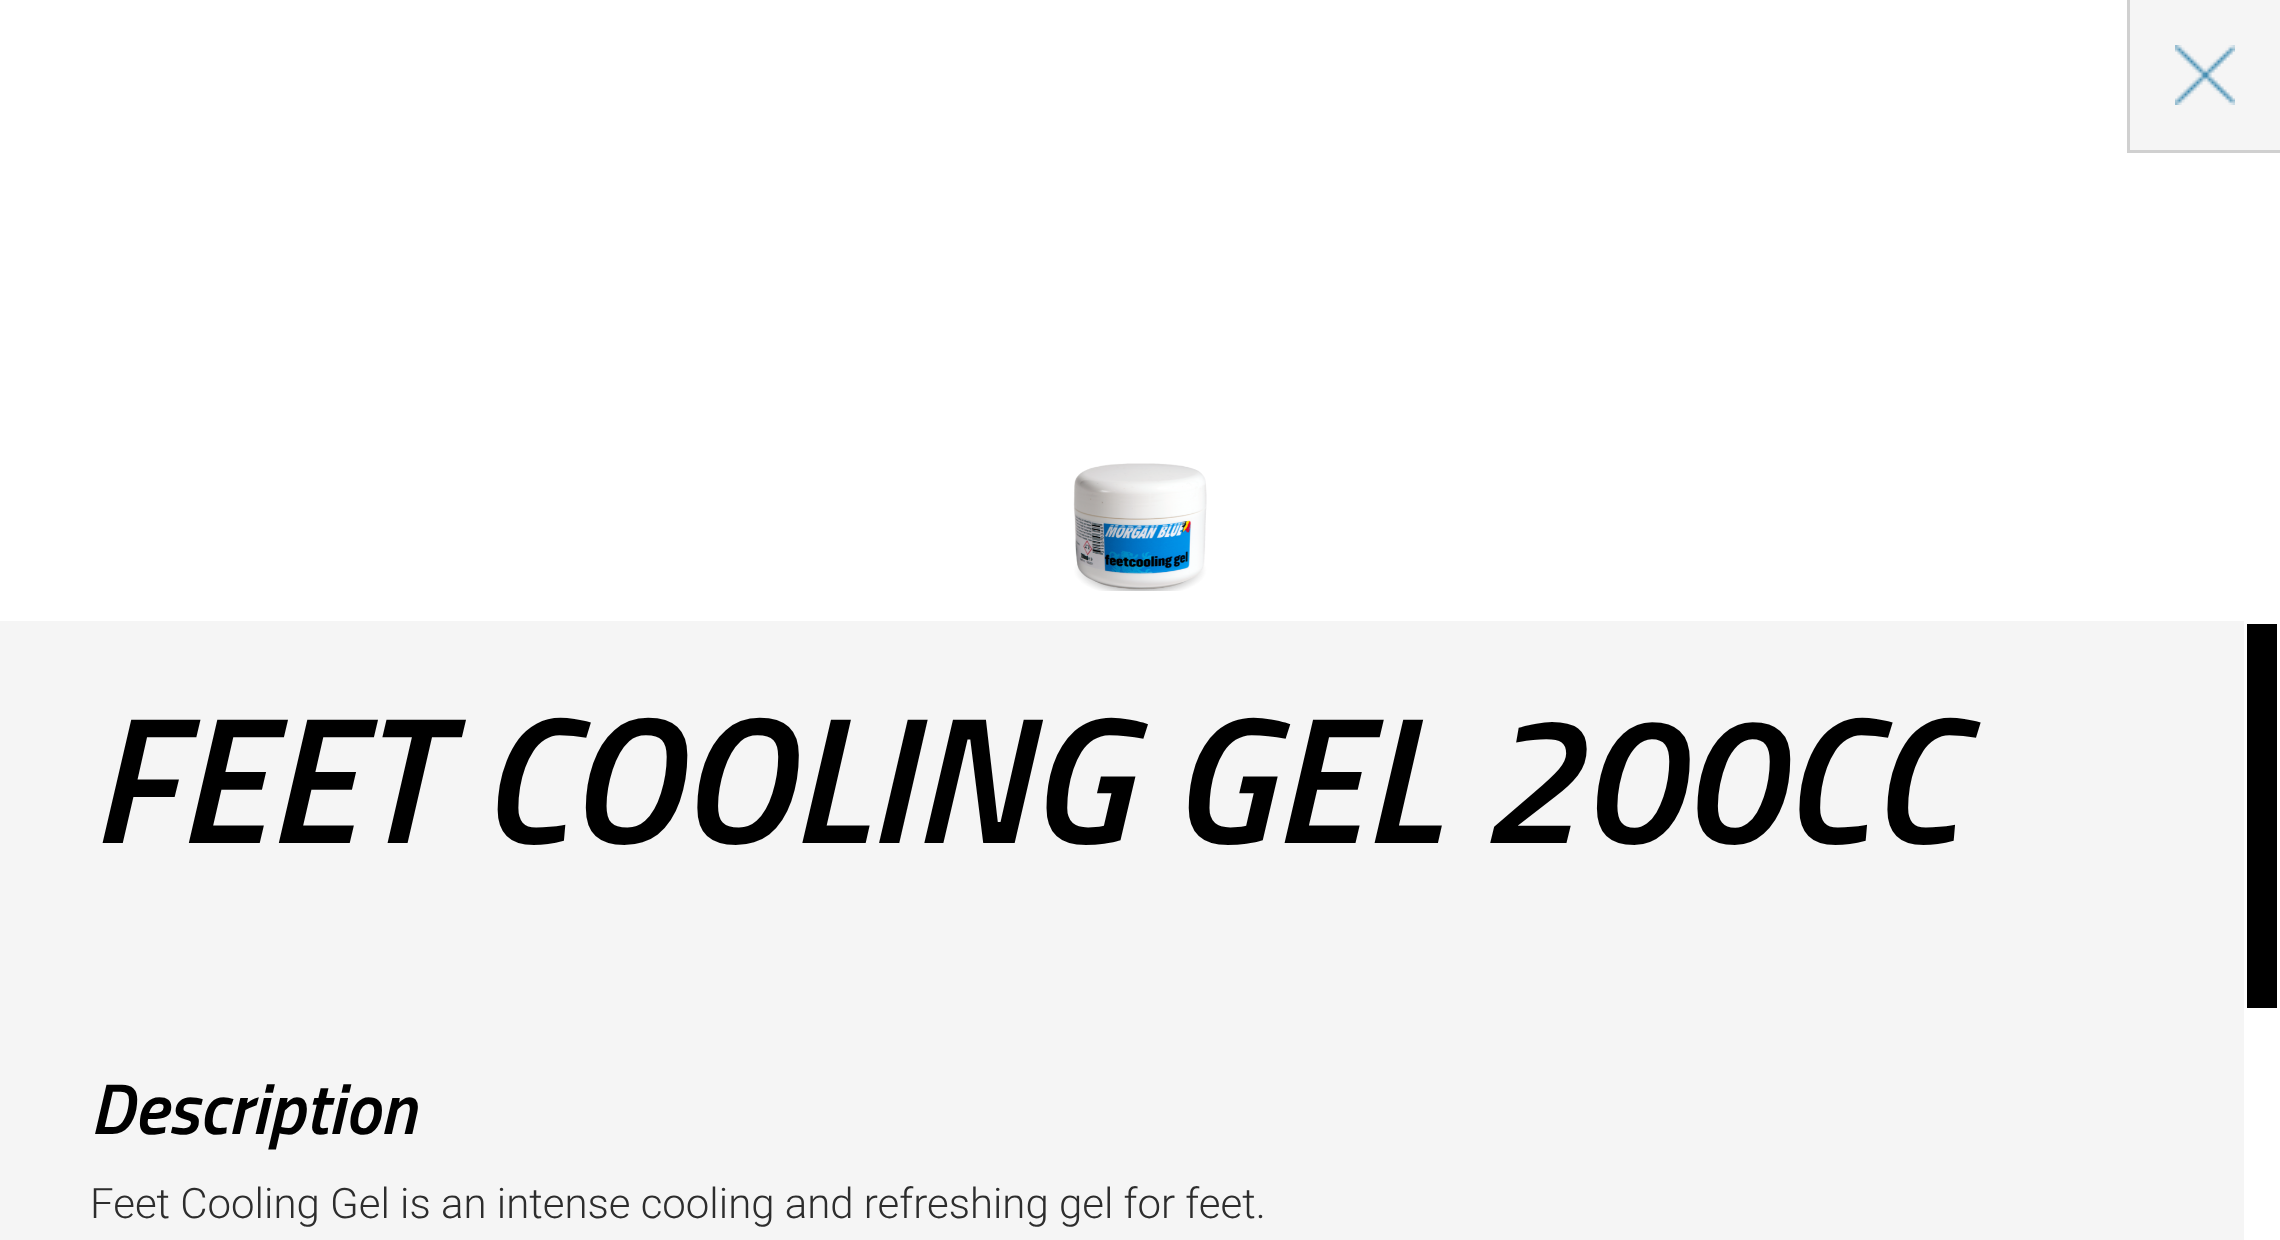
<?xml version="1.0" encoding="UTF-8"?>
<svg xmlns="http://www.w3.org/2000/svg" width="2280" height="1240">
    <rect width="100%" height="100%" fill="#FFFFFF"/>
    <rect x="2130" y="0" width="150" height="150" fill="#F5F5F5"/>
    <image x="2175" y="45" width="60" height="60" href="img_01.png"/>
    <rect x="2127" y="150" width="153" height="3" fill="#D0D0D0"/>
    <rect x="2127" y="0" width="3" height="153" fill="#D0D0D0"/>
    <image x="1073" y="463" width="134" height="128" href="img_02.png"/>
    <rect x="0" y="621" width="2244" height="619" fill="#F5F5F5"/>
    <text x="90" y="843" font-family="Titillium" font-size="180" font-weight="600" font-style="italic" fill="#000000">FEET COOLING GEL 200CC</text>
    <text x="90" y="1134" font-family="Titillium" font-size="72" font-weight="600" font-style="italic" fill="#000000">Description</text>
    <text x="90" y="1218" font-family="Roboto" font-size="42" font-weight="300" fill="#2D2D2D">Feet Cooling Gel is an intense cooling and refreshing gel for feet.</text>
    <rect x="2247" y="624" width="30" height="384" fill="#000000"/>
</svg>
